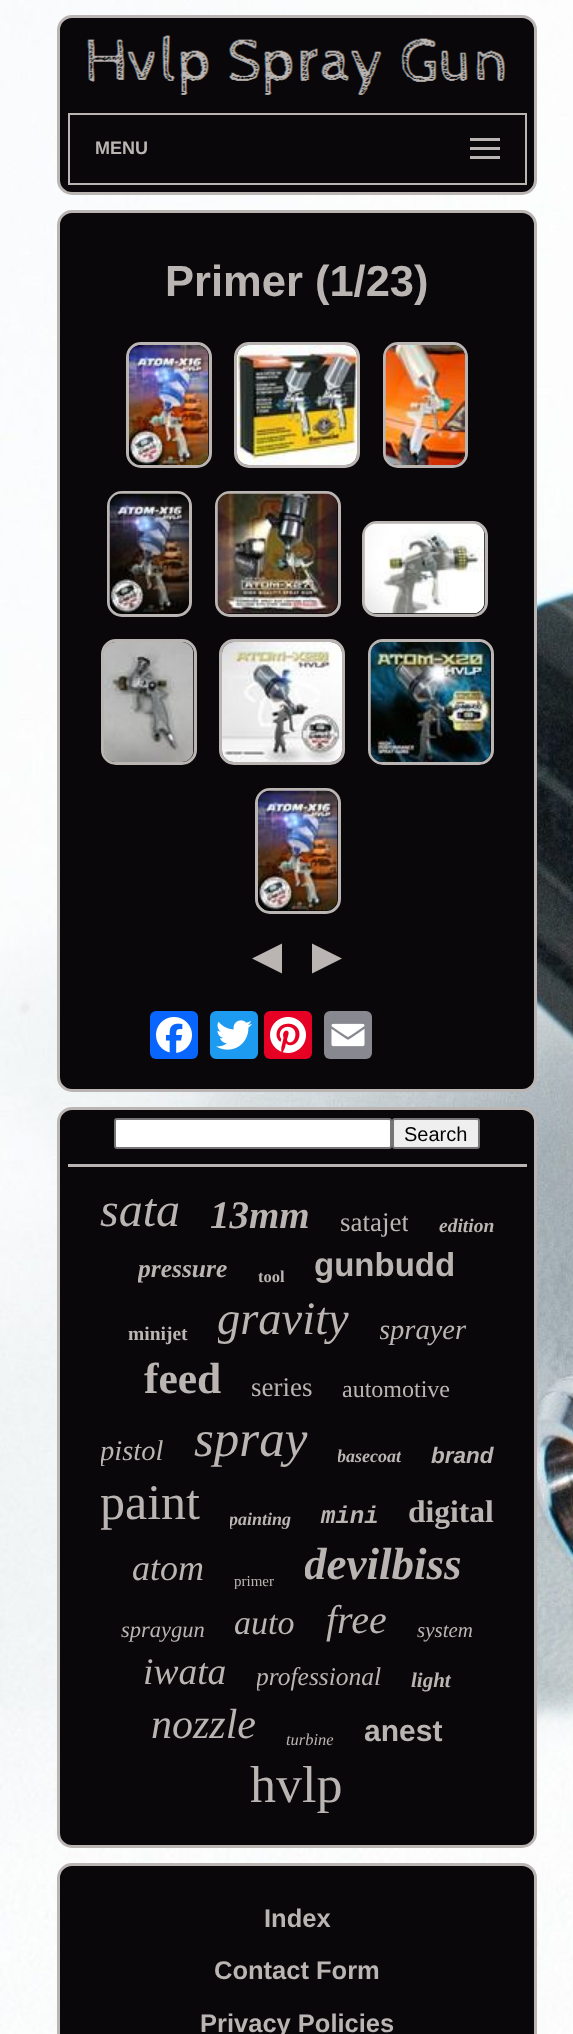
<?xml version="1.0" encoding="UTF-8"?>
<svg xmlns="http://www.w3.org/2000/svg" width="573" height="2034">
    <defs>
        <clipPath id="clip1"><rect x="339" y="1206" width="69" height="32"/></clipPath>
        <clipPath id="clip2"><rect x="138" y="1254" width="90" height="30"/></clipPath>
        <clipPath id="clip3"><rect x="218" y="1292" width="132" height="54"/></clipPath>
        <clipPath id="clip4"><rect x="380" y="1313" width="87" height="33"/></clipPath>
        <clipPath id="clip5"><rect x="101" y="1434" width="63" height="33"/></clipPath>
        <clipPath id="clip6"><rect x="338" y="1445" width="63" height="22"/></clipPath>
        <clipPath id="clip7"><rect x="101" y="1475" width="99" height="55"/></clipPath>
        <clipPath id="clip8"><rect x="230" y="1508" width="61" height="22"/></clipPath>
        <clipPath id="clip9"><rect x="305" y="1538" width="157" height="51"/></clipPath>
        <clipPath id="clip10"><rect x="234" y="1572" width="41" height="17"/></clipPath>
        <clipPath id="clip11"><rect x="257" y="1662" width="124" height="30"/></clipPath>
    </defs>
    <rect width="100%" height="100%" fill="#FFFFFF"/>
    <image x="0" y="0" width="573" height="2034" href="img_01.png"/>
    <rect x="58.5" y="16.5" width="477" height="177" rx="13.5" fill="#09070A" stroke="#BAB5B2" stroke-width="3"/>
    <image x="87" y="35" width="419" height="60" href="img_02.png"/>
    <rect x="69" y="114" width="457" height="70" fill="none" stroke="#BAB5B2" stroke-width="2"/>
    <rect x="470" y="138" width="30" height="3" fill="#BAB5B2"/>
    <text x="95" y="154" font-family="Liberation Sans" font-size="18" font-weight="700" fill="#BAB5B2">MENU</text>
    <rect x="470" y="147" width="30" height="3" fill="#BAB5B2"/>
    <rect x="470" y="156" width="30" height="3" fill="#BAB5B2"/>
    <rect x="58.5" y="211.5" width="477" height="879" rx="13.5" fill="#09070A" stroke="#BAB5B2" stroke-width="3"/>
    <text x="165" y="296" font-family="Liberation Sans" font-size="43.5" font-weight="700" fill="#BAB5B2">Primer (1/23)</text>
    <rect x="127.5" y="343.5" width="83" height="123" rx="13.5" fill="none" stroke="#BAB5B2" stroke-width="3"/>
    <image x="129" y="345" width="80" height="120" href="img_03.png"/>
    <rect x="235.5" y="343.5" width="123" height="123" rx="13.5" fill="none" stroke="#BAB5B2" stroke-width="3"/>
    <image x="237" y="345" width="120" height="120" href="img_04.png"/>
    <rect x="384.5" y="343.5" width="82" height="123" rx="13.5" fill="none" stroke="#BAB5B2" stroke-width="3"/>
    <image x="385" y="345" width="80" height="120" href="img_05.png"/>
    <rect x="108.5" y="492.5" width="82" height="123" rx="13.5" fill="none" stroke="#BAB5B2" stroke-width="3"/>
    <image x="109" y="493" width="80" height="121" href="img_06.png"/>
    <rect x="216.5" y="492.5" width="123" height="123" rx="13.5" fill="none" stroke="#BAB5B2" stroke-width="3"/>
    <image x="217" y="493" width="121" height="121" href="img_07.png"/>
    <rect x="363.5" y="522.5" width="123" height="93" rx="13.5" fill="none" stroke="#BAB5B2" stroke-width="3"/>
    <image x="364" y="523" width="121" height="91" href="img_08.png"/>
    <rect x="102.5" y="640.5" width="93" height="123" rx="13.5" fill="none" stroke="#BAB5B2" stroke-width="3"/>
    <image x="103" y="642" width="91" height="120" href="img_09.png"/>
    <rect x="220.5" y="640.5" width="123" height="123" rx="13.5" fill="none" stroke="#BAB5B2" stroke-width="3"/>
    <image x="222" y="642" width="120" height="120" href="img_10.png"/>
    <rect x="369.5" y="640.5" width="123" height="123" rx="13.5" fill="none" stroke="#BAB5B2" stroke-width="3"/>
    <image x="370" y="642" width="121" height="120" href="img_11.png"/>
    <rect x="256.5" y="789.5" width="83" height="123" rx="13.5" fill="none" stroke="#BAB5B2" stroke-width="3"/>
    <image x="258" y="790" width="80" height="121" href="img_12.png"/>
    <path d="M 282 943.5 V 973.5 L 252 958.5 Z" fill="#BAB5B2"/>
    <path d="M 312 973.5 V 943.5 L 342 958.5 Z" fill="#BAB5B2"/>
    <rect x="150" y="1011" width="48" height="48" rx="6" fill="#0866FF"/>
    <image x="156" y="1017" width="36" height="36" href="img_13.png"/>
    <rect x="210" y="1011" width="48" height="48" rx="6" fill="#1D9BF0"/>
    <image x="216" y="1020" width="36" height="30" href="img_14.png"/>
    <rect x="264" y="1011" width="48" height="48" rx="6" fill="#E60023"/>
    <image x="270" y="1017" width="36" height="36" href="img_15.png"/>
    <rect x="324" y="1011" width="48" height="48" rx="6" fill="#888990"/>
    <image x="331" y="1023" width="34" height="24" href="img_16.png"/>
    <rect x="58.5" y="1108.5" width="477" height="738" rx="13.5" fill="#09070A" stroke="#BAB5B2" stroke-width="3"/>
    <rect x="115" y="1119" width="276" height="29" rx="2" fill="#FFFFFF" stroke="#767676" stroke-width="2"/>
    <rect x="393" y="1119" width="86" height="29" rx="2" fill="#EFEFEF" stroke="#767676" stroke-width="2"/>
    <text x="404" y="1141" font-family="Liberation Sans" font-size="20" fill="#000000">Search</text>
    <rect x="68" y="1164" width="459" height="3" fill="#BAB5B2"/>
    <text x="100" y="1226" font-family="Liberation Serif" font-size="48" font-style="italic" fill="#BAB5B2">sata</text>
    <text x="210" y="1228" font-family="Liberation Serif" font-size="39" font-weight="700" font-style="italic" fill="#BAB5B2">13mm</text>
    <g clip-path="url(#clip1)">
        <text x="340" y="1231" font-family="Liberation Serif" font-size="27" fill="#BAB5B2">satajet</text>
    </g>
    <text x="439" y="1232" font-family="Liberation Serif" font-size="19.5" font-weight="700" font-style="italic" fill="#BAB5B2">edition</text>
    <g clip-path="url(#clip2)">
        <text x="138" y="1277" font-family="Liberation Serif" font-size="25.5" font-weight="700" font-style="italic" fill="#BAB5B2">pressure</text>
    </g>
    <text x="258" y="1282" font-family="Liberation Serif" font-size="16.5" font-weight="700" fill="#BAB5B2">tool</text>
    <text x="314" y="1276" font-family="Liberation Sans" font-size="33" font-weight="700" fill="#BAB5B2">gunbudd</text>
    <text x="128" y="1340" font-family="Liberation Serif" font-size="19.5" font-weight="700" fill="#BAB5B2">minijet</text>
    <g clip-path="url(#clip3)">
        <text x="217" y="1334" font-family="Liberation Serif" font-size="46.5" font-style="italic" fill="#BAB5B2">gravity</text>
    </g>
    <g clip-path="url(#clip4)">
        <text x="379" y="1339" font-family="Liberation Serif" font-size="28.5" font-style="italic" fill="#BAB5B2">sprayer</text>
    </g>
    <text x="144" y="1393" font-family="Liberation Serif" font-size="43.5" font-weight="700" fill="#BAB5B2">feed</text>
    <text x="251" y="1396" font-family="Liberation Serif" font-size="27" fill="#BAB5B2">series</text>
    <text x="342" y="1397" font-family="Liberation Serif" font-size="24" fill="#BAB5B2">automotive</text>
    <g clip-path="url(#clip5)">
        <text x="100" y="1460" font-family="Liberation Serif" font-size="28.5" font-style="italic" fill="#BAB5B2">pistol</text>
    </g>
    <text x="194" y="1456" font-family="Liberation Serif" font-size="51" font-style="italic" fill="#BAB5B2">spray</text>
    <g clip-path="url(#clip6)">
        <text x="337" y="1462" font-family="Liberation Serif" font-size="18" font-weight="700" font-style="italic" fill="#BAB5B2">basecoat</text>
    </g>
    <text x="431" y="1463" font-family="Liberation Sans" font-size="22.5" font-weight="700" font-style="italic" fill="#BAB5B2">brand</text>
    <g clip-path="url(#clip7)">
        <text x="100" y="1519" font-family="Liberation Serif" font-size="50" fill="#BAB5B2">paint</text>
    </g>
    <g clip-path="url(#clip8)">
        <text x="229" y="1525" font-family="Liberation Serif" font-size="18" font-weight="700" font-style="italic" fill="#BAB5B2">painting</text>
    </g>
    <text x="321" y="1523" font-family="Liberation Mono" font-size="24" font-weight="700" font-style="italic" fill="#BAB5B2">mini</text>
    <text x="408" y="1522" font-family="Liberation Serif" font-size="31.5" font-weight="700" fill="#BAB5B2">digital</text>
    <text x="132" y="1580" font-family="Liberation Serif" font-size="36" font-style="italic" fill="#BAB5B2">atom</text>
    <g clip-path="url(#clip9)">
        <text x="304" y="1579" font-family="Liberation Serif" font-size="45" font-weight="700" font-style="italic" fill="#BAB5B2">devilbiss</text>
    </g>
    <g clip-path="url(#clip10)">
        <text x="234" y="1586" font-family="Liberation Serif" font-size="15" fill="#BAB5B2">primer</text>
    </g>
    <text x="121" y="1637" font-family="Liberation Serif" font-size="22.5" font-style="italic" fill="#BAB5B2">spraygun</text>
    <text x="234" y="1634" font-family="Liberation Serif" font-size="34" font-style="italic" fill="#BAB5B2">auto</text>
    <text x="326" y="1633" font-family="Liberation Serif" font-size="40" font-style="italic" fill="#BAB5B2">free</text>
    <text x="417" y="1637" font-family="Liberation Serif" font-size="21" font-style="italic" fill="#BAB5B2">system</text>
    <text x="143" y="1684" font-family="Liberation Serif" font-size="37.5" font-style="italic" fill="#BAB5B2">iwata</text>
    <g clip-path="url(#clip11)">
        <text x="256" y="1685" font-family="Liberation Serif" font-size="25.5" font-style="italic" fill="#BAB5B2">professional</text>
    </g>
    <text x="411" y="1687" font-family="Liberation Serif" font-size="21" font-weight="700" font-style="italic" fill="#BAB5B2">light</text>
    <text x="151" y="1738" font-family="Liberation Serif" font-size="42" font-style="italic" fill="#BAB5B2">nozzle</text>
    <text x="286" y="1745" font-family="Liberation Serif" font-size="16.5" font-style="italic" fill="#BAB5B2">turbine</text>
    <text x="364" y="1741" font-family="Liberation Sans" font-size="30" font-weight="700" fill="#BAB5B2">anest</text>
    <text x="250" y="1802" font-family="Liberation Serif" font-size="52" fill="#BAB5B2">hvlp</text>
    <rect x="58.5" y="1864.5" width="477" height="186" rx="13.5" fill="#09070A" stroke="#BAB5B2" stroke-width="3"/>
    <text x="264" y="1927" font-family="Liberation Sans" font-size="25.5" font-weight="700" fill="#BAB5B2">Index</text>
    <text x="214" y="1979" font-family="Liberation Sans" font-size="25.5" font-weight="700" fill="#BAB5B2">Contact Form</text>
    <text x="200" y="2032" font-family="Liberation Sans" font-size="25.5" font-weight="700" fill="#BAB5B2">Privacy Policies</text>
</svg>
